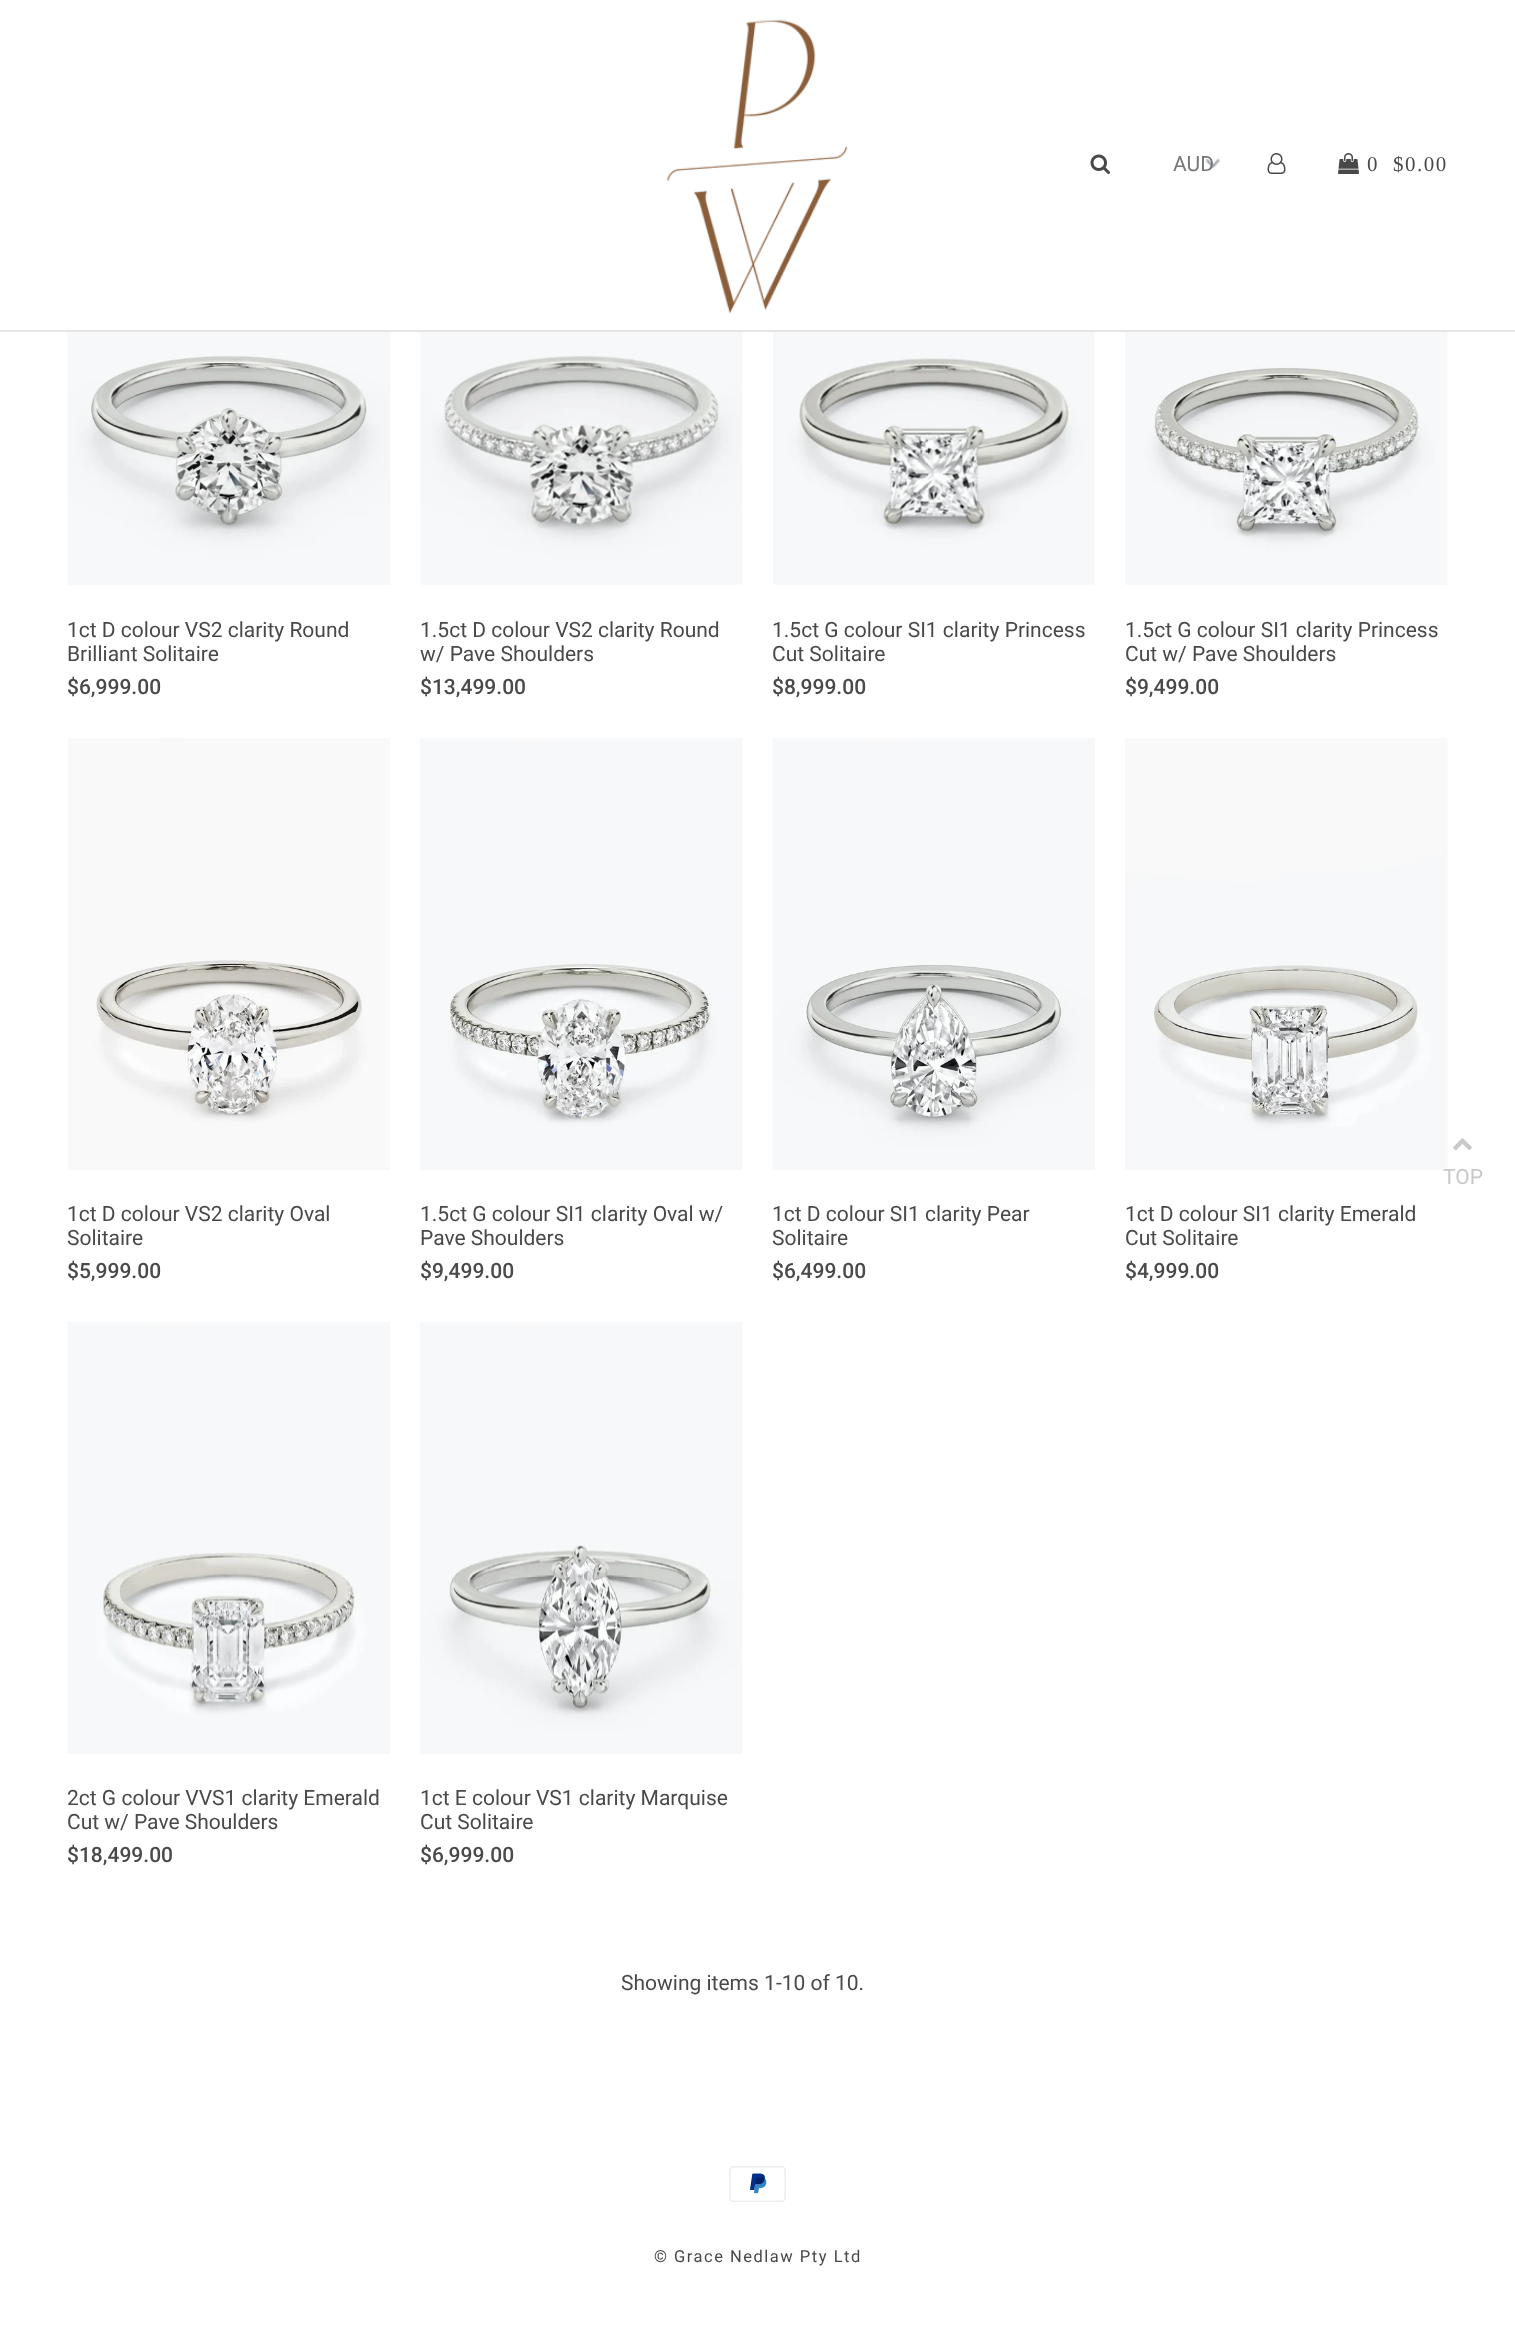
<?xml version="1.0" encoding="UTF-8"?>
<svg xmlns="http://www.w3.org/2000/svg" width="1515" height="2343">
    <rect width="100%" height="100%" fill="#FFFFFF"/>
    <rect x="0" y="330" width="1515" height="2" fill="#E5E5E5"/>
    <image x="667" y="19" width="181" height="295" href="img_01.png"/>
    <image x="1090" y="154" width="20" height="20" href="img_02.png"/>
    <image x="1205" y="158" width="15" height="11" href="img_03.png"/>
    <text x="1173" y="171" font-family="Roboto" font-size="21" fill="#777777">AUD</text>
    <image x="1267" y="153" width="19" height="21" href="img_04.png"/>
    <image x="1338" y="153" width="21" height="21" href="img_05.png"/>
    <text x="1367" y="171" font-family="Liberation Serif" font-size="21" letter-spacing="1.5" fill="#4A494A">0</text>
    <text x="1393" y="171" font-family="Liberation Serif" font-size="21" letter-spacing="1.5" fill="#4A494A">$0.00</text>
    <image x="67" y="332" width="323" height="253" href="img_06.png"/>
    <text font-family="Roboto" font-size="21" fill="#4A494A">
        <tspan x="67" y="637">1ct D colour VS2 clarity Round</tspan>
        <tspan x="67" y="661">Brilliant Solitaire</tspan>
    </text>
    <text x="67" y="694" font-family="Roboto" font-size="21" font-weight="500" fill="#4A494A">$6,999.00</text>
    <image x="420" y="332" width="323" height="253" href="img_07.png"/>
    <text font-family="Roboto" font-size="21" fill="#4A494A">
        <tspan x="420" y="637">1.5ct D colour VS2 clarity Round</tspan>
        <tspan x="420" y="661">w/ Pave Shoulders</tspan>
    </text>
    <text x="420" y="694" font-family="Roboto" font-size="21" font-weight="500" fill="#4A494A">$13,499.00</text>
    <image x="773" y="332" width="322" height="253" href="img_08.png"/>
    <text font-family="Roboto" font-size="21" fill="#4A494A">
        <tspan x="772" y="637">1.5ct G colour SI1 clarity Princess</tspan>
        <tspan x="772" y="661">Cut Solitaire</tspan>
    </text>
    <text x="772" y="694" font-family="Roboto" font-size="21" font-weight="500" fill="#4A494A">$8,999.00</text>
    <image x="1125" y="332" width="323" height="253" href="img_09.png"/>
    <text font-family="Roboto" font-size="21" fill="#4A494A">
        <tspan x="1125" y="637">1.5ct G colour SI1 clarity Princess</tspan>
        <tspan x="1125" y="661">Cut w/ Pave Shoulders</tspan>
    </text>
    <text x="1125" y="694" font-family="Roboto" font-size="21" font-weight="500" fill="#4A494A">$9,499.00</text>
    <image x="68" y="738" width="322" height="432" href="img_10.png"/>
    <text font-family="Roboto" font-size="21" fill="#4A494A">
        <tspan x="67" y="1221">1ct D colour VS2 clarity Oval</tspan>
        <tspan x="67" y="1245">Solitaire</tspan>
    </text>
    <text x="67" y="1278" font-family="Roboto" font-size="21" font-weight="500" fill="#4A494A">$5,999.00</text>
    <image x="420" y="738" width="323" height="432" href="img_11.png"/>
    <text font-family="Roboto" font-size="21" fill="#4A494A">
        <tspan x="420" y="1221">1.5ct G colour SI1 clarity Oval w/</tspan>
        <tspan x="420" y="1245">Pave Shoulders</tspan>
    </text>
    <text x="420" y="1278" font-family="Roboto" font-size="21" font-weight="500" fill="#4A494A">$9,499.00</text>
    <image x="772" y="738" width="323" height="432" href="img_12.png"/>
    <text font-family="Roboto" font-size="21" fill="#4A494A">
        <tspan x="772" y="1221">1ct D colour SI1 clarity Pear</tspan>
        <tspan x="772" y="1245">Solitaire</tspan>
    </text>
    <text x="772" y="1278" font-family="Roboto" font-size="21" font-weight="500" fill="#4A494A">$6,499.00</text>
    <image x="1125" y="738" width="323" height="432" href="img_13.png"/>
    <text font-family="Roboto" font-size="21" fill="#4A494A">
        <tspan x="1125" y="1221">1ct D colour SI1 clarity Emerald</tspan>
        <tspan x="1125" y="1245">Cut Solitaire</tspan>
    </text>
    <text x="1125" y="1278" font-family="Roboto" font-size="21" font-weight="500" fill="#4A494A">$4,999.00</text>
    <image x="67" y="1322" width="323" height="432" href="img_14.png"/>
    <text font-family="Roboto" font-size="21" fill="#4A494A">
        <tspan x="67" y="1805">2ct G colour VVS1 clarity Emerald</tspan>
        <tspan x="67" y="1829">Cut w/ Pave Shoulders</tspan>
    </text>
    <text x="67" y="1862" font-family="Roboto" font-size="21" font-weight="500" fill="#4A494A">$18,499.00</text>
    <image x="420" y="1322" width="323" height="432" href="img_15.png"/>
    <text font-family="Roboto" font-size="21" fill="#4A494A">
        <tspan x="420" y="1805">1ct E colour VS1 clarity Marquise</tspan>
        <tspan x="420" y="1829">Cut Solitaire</tspan>
    </text>
    <text x="420" y="1862" font-family="Roboto" font-size="21" font-weight="500" fill="#4A494A">$6,999.00</text>
    <text x="621" y="1990" font-family="Roboto" font-size="21" fill="#4A494A">Showing items 1-10 of 10.</text>
    <image x="729" y="2166" width="57" height="36" href="img_16.png"/>
    <text x="654" y="2262" font-family="Roboto" font-size="16.5" letter-spacing="1.5" fill="#4A494A">© Grace Nedlaw Pty Ltd</text>
    <image x="1453" y="1138" width="19" height="13" href="img_17.png"/>
    <text x="1443" y="1184" font-family="Roboto" font-size="21" fill="#C9C8C9">TOP</text>
</svg>
